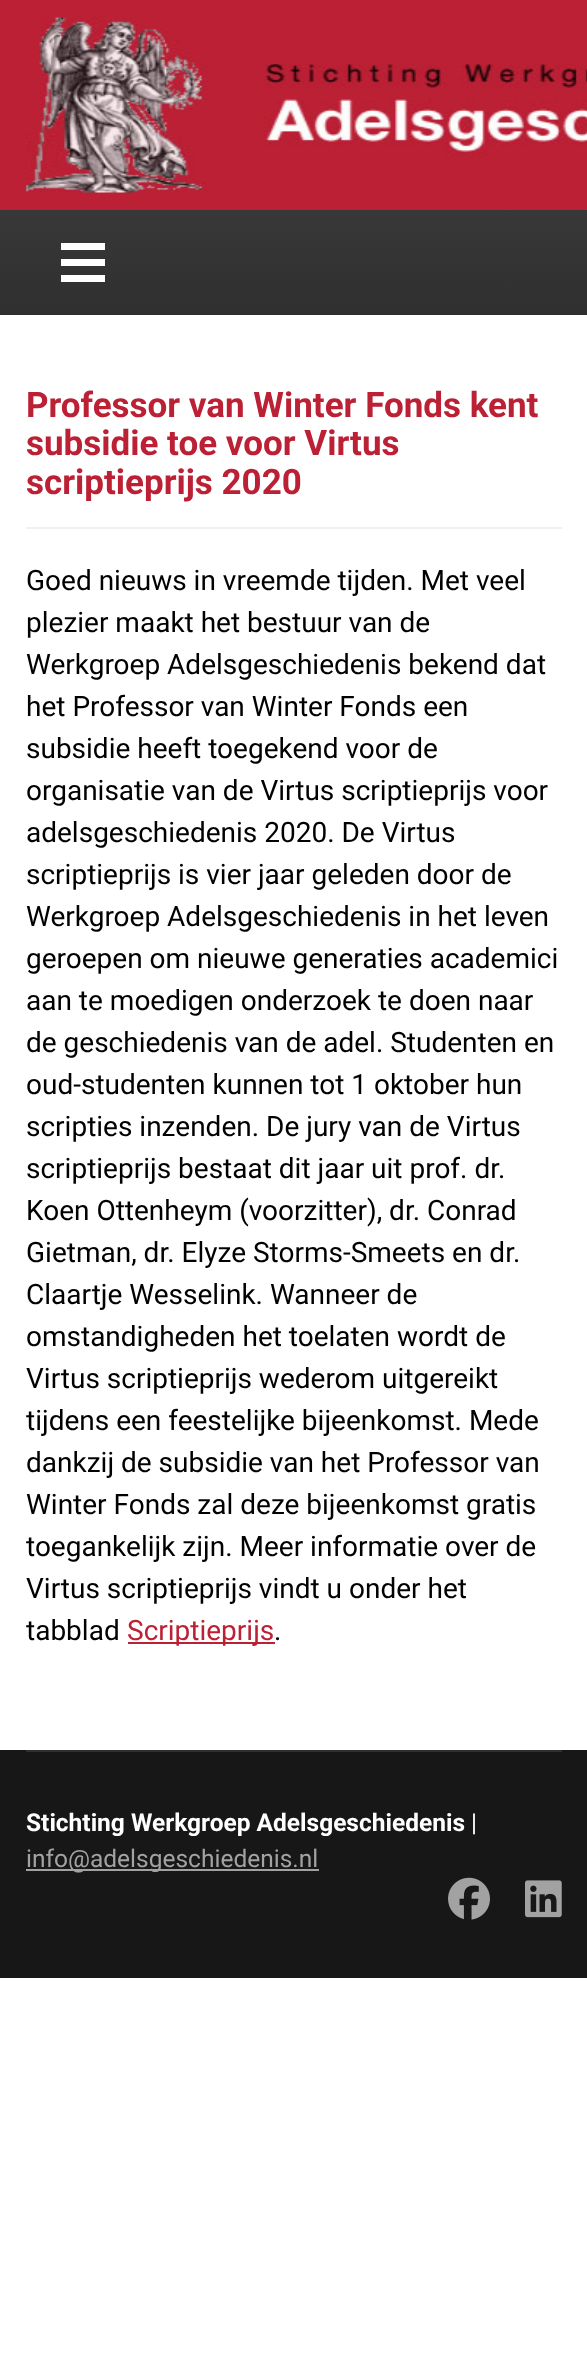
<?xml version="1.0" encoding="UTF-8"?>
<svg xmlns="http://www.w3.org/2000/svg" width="587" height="2361">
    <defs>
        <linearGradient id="g1" gradientUnits="userSpaceOnUse" x1="294" y1="210" x2="294" y2="315"><stop offset="0" stop-color="#383838"/><stop offset="1" stop-color="#2F2F2F"/></linearGradient>
    </defs>
    <rect width="100%" height="100%" fill="#FFFFFF"/>
    <rect x="0" y="0" width="587" height="210" fill="#BC2035"/>
    <image x="26" y="17" width="561" height="176" href="img_01.png"/>
    <rect x="0" y="210" width="587" height="105" fill="url(#g1)"/>
    <rect x="61" y="243" width="44" height="7" fill="#FFFFFF"/>
    <rect x="61" y="259" width="44" height="7" fill="#FFFFFF"/>
    <rect x="61" y="275" width="44" height="7" fill="#FFFFFF"/>
    <rect x="26" y="527" width="536" height="2" fill="#F0F0F0"/>
    <text font-family="Roboto" font-size="35" font-weight="700" fill="#BC2035">
        <tspan x="26" y="417">Professor van Winter Fonds kent</tspan>
        <tspan x="26" y="455">subsidie toe voor Virtus</tspan>
        <tspan x="26" y="494">scriptieprijs 2020</tspan>
    </text>
    <text font-family="Roboto" font-size="28" fill="#000000">
        <tspan x="26" y="590">Goed nieuws in vreemde tijden. Met veel</tspan>
        <tspan x="26" y="632">plezier maakt het bestuur van de</tspan>
        <tspan x="26" y="674">Werkgroep Adelsgeschiedenis bekend dat</tspan>
        <tspan x="26" y="716">het Professor van Winter Fonds een</tspan>
        <tspan x="26" y="758">subsidie heeft toegekend voor de</tspan>
        <tspan x="26" y="800">organisatie van de Virtus scriptieprijs voor</tspan>
        <tspan x="26" y="842">adelsgeschiedenis 2020. De Virtus</tspan>
        <tspan x="26" y="884">scriptieprijs is vier jaar geleden door de</tspan>
        <tspan x="26" y="926">Werkgroep Adelsgeschiedenis in het leven</tspan>
        <tspan x="26" y="968">geroepen om nieuwe generaties academici</tspan>
        <tspan x="26" y="1010">aan te moedigen onderzoek te doen naar</tspan>
        <tspan x="26" y="1052">de geschiedenis van de adel. Studenten en</tspan>
        <tspan x="26" y="1094">oud-studenten kunnen tot 1 oktober hun</tspan>
        <tspan x="26" y="1136">scripties inzenden. De jury van de Virtus</tspan>
        <tspan x="26" y="1178">scriptieprijs bestaat dit jaar uit prof. dr.</tspan>
        <tspan x="26" y="1220">Koen Ottenheym (voorzitter), dr. Conrad</tspan>
        <tspan x="26" y="1262">Gietman, dr. Elyze Storms-Smeets en dr.</tspan>
        <tspan x="26" y="1304">Claartje Wesselink. Wanneer de</tspan>
        <tspan x="26" y="1346">omstandigheden het toelaten wordt de</tspan>
        <tspan x="26" y="1388">Virtus scriptieprijs wederom uitgereikt</tspan>
        <tspan x="26" y="1430">tijdens een feestelijke bijeenkomst. Mede</tspan>
        <tspan x="26" y="1472">dankzij de subsidie van het Professor van</tspan>
        <tspan x="26" y="1514">Winter Fonds zal deze bijeenkomst gratis</tspan>
        <tspan x="26" y="1556">toegankelijk zijn. Meer informatie over de</tspan>
        <tspan x="26" y="1598">Virtus scriptieprijs vindt u onder het</tspan>
        <tspan x="26" y="1640">tabblad</tspan>
    </text>
    <rect x="128" y="1642" width="147" height="2" fill="#BC2035"/>
    <text x="127" y="1640" font-family="Roboto" font-size="28" fill="#BC2035">Scriptieprijs</text>
    <text x="274" y="1640" font-family="Roboto" font-size="28" fill="#000000">.</text>
    <rect x="0" y="1750" width="587" height="228" fill="#171717"/>
    <rect x="26" y="1750" width="536" height="2" fill="#2E2E2E"/>
    <text x="26" y="1831" font-family="Roboto" font-size="24.5" font-weight="700" fill="#FFFFFF">Stichting Werkgroep Adelsgeschiedenis</text>
    <text x="471" y="1831" font-family="Roboto" font-size="24.5" fill="#FFFFFF">|</text>
    <rect x="26" y="1869" width="293" height="2" fill="#A2A2A2"/>
    <text x="26" y="1867" font-family="Roboto" font-size="24.5" fill="#A2A2A2">info@adelsgeschiedenis.nl</text>
    <image x="448" y="1877" width="42" height="43" href="img_02.png"/>
    <image x="525" y="1880" width="37" height="38" href="img_03.png"/>
</svg>
